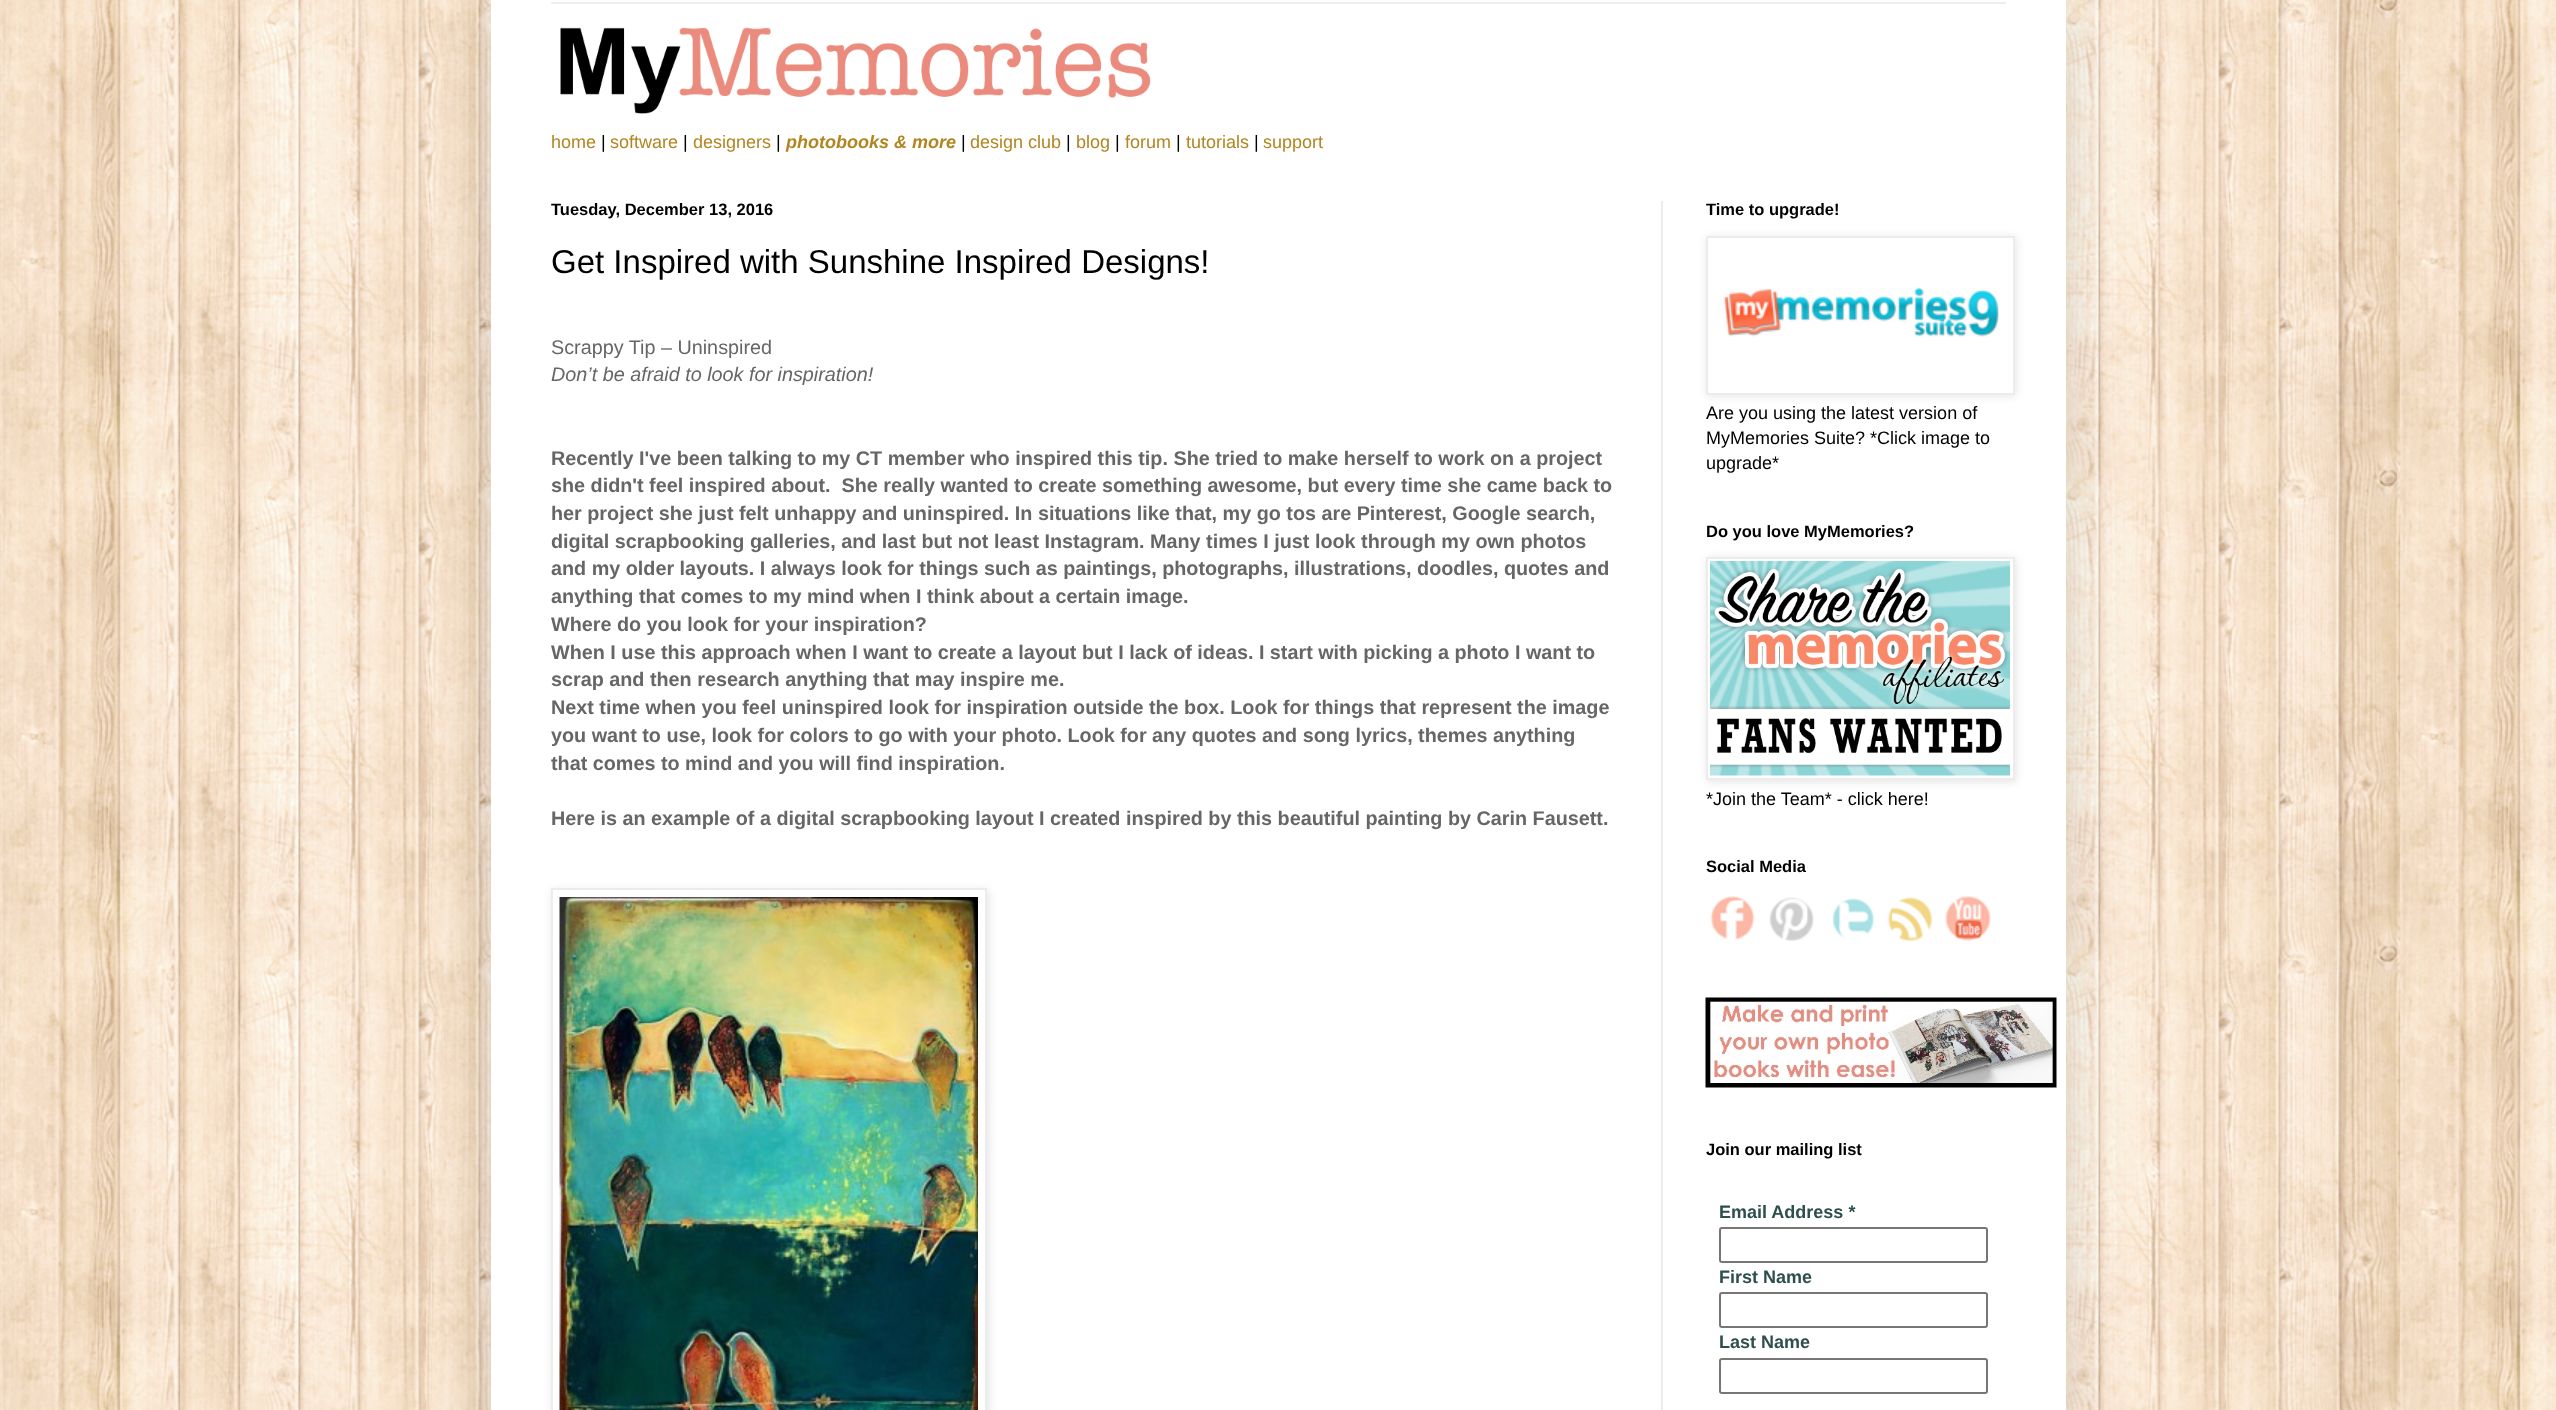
<?xml version="1.0" encoding="UTF-8"?>
<svg xmlns="http://www.w3.org/2000/svg" width="2556" height="1410">
    <defs>
        <filter id="blur1" x="-50%" y="-200%" width="200%" height="500%"><feGaussianBlur stdDeviation="30"/></filter>
        <clipPath id="clip1"><path d="M 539 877 H 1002 V 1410 H 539 Z M 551 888 H 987 V 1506 H 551 Z" clip-rule="evenodd"/></clipPath>
        <filter id="blur2" x="-50%" y="-200%" width="200%" height="500%"><feGaussianBlur stdDeviation="4"/></filter>
    </defs>
    <rect width="100%" height="100%" fill="#FFFFFF"/>
    <image x="0" y="0" width="2556" height="1410" href="img_01.png"/>
    <rect x="491" y="0" width="1575" height="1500" fill="#000000" fill-opacity="0.15" filter="url(#blur1)"/>
    <rect x="491" y="0" width="1575" height="1410" fill="#FFFFFF"/>
    <rect x="551" y="2" width="1455" height="2" fill="#EEEEEE"/>
    <image x="560" y="27" width="591" height="87" href="img_02.png"/>
    <text x="551" y="148" font-family="Liberation Sans" font-size="18" fill="#B28520">home</text>
    <text x="601" y="148" font-family="Liberation Sans" font-size="18" fill="#000000">|</text>
    <text x="610" y="148" font-family="Liberation Sans" font-size="18" fill="#B28520">software</text>
    <text x="683" y="148" font-family="Liberation Sans" font-size="18" fill="#000000">|</text>
    <text x="693" y="148" font-family="Liberation Sans" font-size="18" fill="#B28520">designers</text>
    <text x="776" y="148" font-family="Liberation Sans" font-size="18" fill="#000000">|</text>
    <text x="786" y="148" font-family="Liberation Sans" font-size="18" font-weight="700" font-style="italic" fill="#B28520">photobooks &amp; more</text>
    <text x="961" y="148" font-family="Liberation Sans" font-size="18" fill="#000000">|</text>
    <text x="970" y="148" font-family="Liberation Sans" font-size="18" fill="#B28520">design club</text>
    <text x="1066" y="148" font-family="Liberation Sans" font-size="18" fill="#000000">|</text>
    <text x="1076" y="148" font-family="Liberation Sans" font-size="18" fill="#B28520">blog</text>
    <text x="1115" y="148" font-family="Liberation Sans" font-size="18" fill="#000000">|</text>
    <text x="1125" y="148" font-family="Liberation Sans" font-size="18" fill="#B28520">forum</text>
    <text x="1176" y="148" font-family="Liberation Sans" font-size="18" fill="#000000">|</text>
    <text x="1186" y="148" font-family="Liberation Sans" font-size="18" fill="#B28520">tutorials</text>
    <text x="1254" y="148" font-family="Liberation Sans" font-size="18" fill="#000000">|</text>
    <text x="1263" y="148" font-family="Liberation Sans" font-size="18" fill="#B28520">support</text>
    <rect x="1661" y="201" width="2" height="1209" fill="#ECECEC"/>
    <text x="551" y="215" font-family="Liberation Sans" font-size="16.5" font-weight="700" fill="#000000">Tuesday, December 13, 2016</text>
    <text x="551" y="273" font-family="Liberation Sans" font-size="33" fill="#000000">Get Inspired with Sunshine Inspired Designs!</text>
    <text x="551" y="354" font-family="Liberation Sans" font-size="19.8" fill="#666666">Scrappy Tip – Uninspired</text>
    <text x="551" y="381" font-family="Liberation Sans" font-size="19.8" font-style="italic" fill="#666666">Don’t be afraid to look for inspiration!</text>
    <text font-family="Liberation Sans" font-size="19.8" font-weight="700" fill="#666666" xml:space="preserve"><tspan x="551" y="465">Recently I've been talking to my CT member who inspired this tip. She tried to make herself to work on a project</tspan><tspan x="551" y="492">she didn't feel inspired about.  She really wanted to create something awesome, but every time she came back to</tspan><tspan x="551" y="520">her project she just felt unhappy and uninspired. In situations like that, my go tos are Pinterest, Google search,</tspan><tspan x="551" y="548">digital scrapbooking galleries, and last but not least Instagram. Many times I just look through my own photos</tspan><tspan x="551" y="575">and my older layouts. I always look for things such as paintings, photographs, illustrations, doodles, quotes and</tspan><tspan x="551" y="603">anything that comes to my mind when I think about a certain image.</tspan><tspan x="551" y="631">Where do you look for your inspiration?</tspan><tspan x="551" y="659">When I use this approach when I want to create a layout but I lack of ideas. I start with picking a photo I want to</tspan><tspan x="551" y="686">scrap and then research anything that may inspire me.</tspan><tspan x="551" y="714">Next time when you feel uninspired look for inspiration outside the box. Look for things that represent the image</tspan><tspan x="551" y="742">you want to use, look for colors to go with your photo. Look for any quotes and song lyrics, themes anything</tspan><tspan x="551" y="770">that comes to mind and you will find inspiration.</tspan></text>
    <text x="551" y="825" font-family="Liberation Sans" font-size="19.8" font-weight="700" fill="#666666">Here is an example of a digital scrapbooking layout I created inspired by this beautiful painting by Carin Fausett.</text>
    <g clip-path="url(#clip1)">
        <rect x="552" y="890" width="437" height="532" fill="#000000" fill-opacity="0.1" filter="url(#blur2)"/>
    </g>
    <rect x="552" y="889" width="434" height="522" fill="none" stroke="#ECECEC" stroke-width="2"/>
    <image x="559" y="897" width="419" height="513" href="img_03.png"/>
    <text x="1706" y="215" font-family="Liberation Sans" font-size="16.5" font-weight="700" fill="#000000">Time to upgrade!</text>
    <rect x="1707" y="237" width="309" height="159" fill="#000000" fill-opacity="0.1" filter="url(#blur2)"/>
    <rect x="1707" y="237" width="307" height="157" fill="#FFFFFF" stroke="#ECECEC" stroke-width="2"/>
    <image x="1723" y="287" width="277" height="50" href="img_04.png"/>
    <text font-family="Liberation Sans" font-size="18" fill="#000000">
        <tspan x="1706" y="419">Are you using the latest version of</tspan>
        <tspan x="1706" y="444">MyMemories Suite? *Click image to</tspan>
        <tspan x="1706" y="469">upgrade*</tspan>
    </text>
    <text x="1706" y="537" font-family="Liberation Sans" font-size="16.5" font-weight="700" fill="#000000">Do you love MyMemories?</text>
    <rect x="1707" y="558" width="309" height="224" fill="#000000" fill-opacity="0.1" filter="url(#blur2)"/>
    <rect x="1707" y="558" width="307" height="221" fill="#FFFFFF" stroke="#ECECEC" stroke-width="2"/>
    <image x="1710" y="561" width="300" height="215" href="img_05.png"/>
    <text x="1706" y="805" font-family="Liberation Sans" font-size="18" fill="#000000">*Join the Team* - click here!</text>
    <text x="1706" y="872" font-family="Liberation Sans" font-size="16.5" font-weight="700" fill="#000000">Social Media</text>
    <image x="1710" y="896" width="45" height="44" href="img_06.png"/>
    <image x="1769" y="897" width="45" height="44" href="img_07.png"/>
    <image x="1832" y="898" width="43" height="41" href="img_08.png"/>
    <image x="1887" y="897" width="46" height="45" href="img_09.png"/>
    <image x="1945" y="896" width="46" height="45" href="img_10.png"/>
    <image x="1705" y="997" width="352" height="91" href="img_11.png"/>
    <text x="1706" y="1155" font-family="Liberation Sans" font-size="16.5" font-weight="700" fill="#000000">Join our mailing list</text>
    <text x="1719" y="1218" font-family="Liberation Sans" font-size="18" font-weight="700" fill="#2F4F4F">Email Address *</text>
    <rect x="1720" y="1228" width="267" height="34" rx="2" fill="none" stroke="#767676" stroke-width="2"/>
    <text x="1719" y="1283" font-family="Liberation Sans" font-size="18" font-weight="700" fill="#2F4F4F">First Name</text>
    <rect x="1720" y="1293" width="267" height="34" rx="2" fill="none" stroke="#767676" stroke-width="2"/>
    <text x="1719" y="1348" font-family="Liberation Sans" font-size="18" font-weight="700" fill="#2F4F4F">Last Name</text>
    <rect x="1720" y="1359" width="267" height="34" rx="2" fill="none" stroke="#767676" stroke-width="2"/>
</svg>
